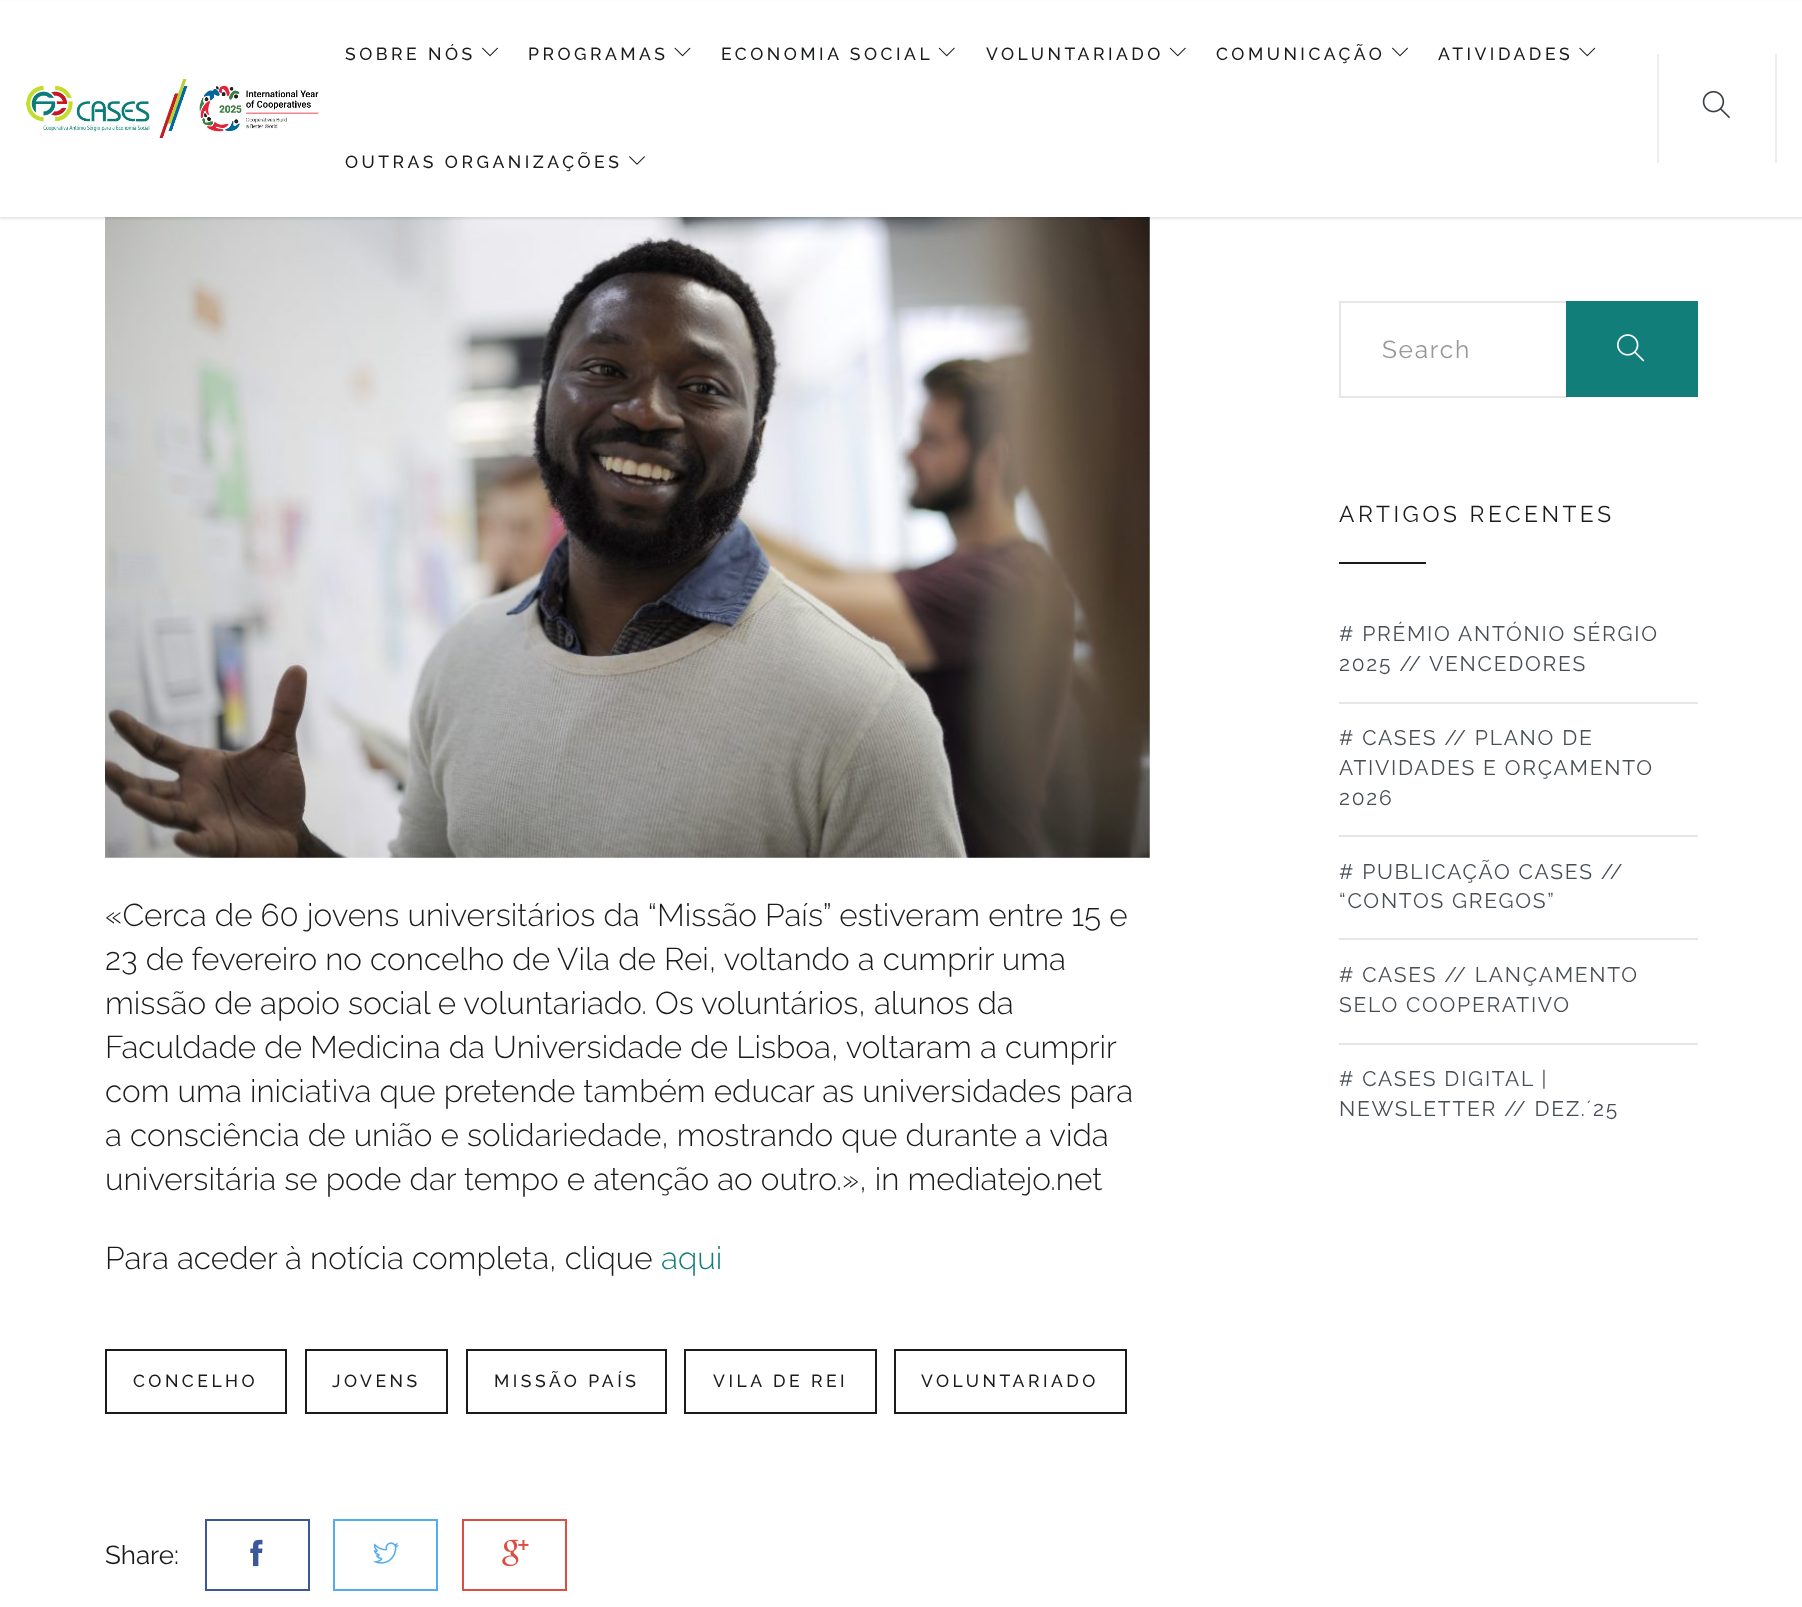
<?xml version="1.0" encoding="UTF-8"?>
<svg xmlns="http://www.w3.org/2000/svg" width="1802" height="1607">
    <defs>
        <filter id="blur1" x="-50%" y="-200%" width="200%" height="500%"><feGaussianBlur stdDeviation="1"/></filter>
    </defs>
    <rect width="100%" height="100%" fill="#FFFFFF"/>
    <image x="105" y="217" width="1045" height="641" href="img_09.png"/>
    <rect x="0" y="2" width="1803" height="217" fill="#000000" fill-opacity="0.1" filter="url(#blur1)"/>
    <rect x="0" y="1" width="1802" height="216" fill="#FFFFFF"/>
    <image x="26" y="79" width="293" height="59" href="img_01.png"/>
    <text x="345" y="60" font-family="Raleway" font-size="17.5" font-weight="500" letter-spacing="3.5" fill="#191B1D">SOBRE NÓS</text>
    <image x="482" y="47" width="16" height="10" href="img_02.png"/>
    <text x="528" y="60" font-family="Raleway" font-size="17.5" font-weight="500" letter-spacing="3.5" fill="#191B1D">PROGRAMAS</text>
    <image x="674" y="47" width="17" height="10" href="img_03.png"/>
    <text x="721" y="60" font-family="Raleway" font-size="17.5" font-weight="500" letter-spacing="3.5" fill="#191B1D">ECONOMIA SOCIAL</text>
    <image x="938" y="47" width="17" height="10" href="img_04.png"/>
    <text x="986" y="60" font-family="Raleway" font-size="17.5" font-weight="500" letter-spacing="3.5" fill="#191B1D">VOLUNTARIADO</text>
    <image x="1169" y="47" width="17" height="10" href="img_04.png"/>
    <text x="1216" y="60" font-family="Raleway" font-size="17.5" font-weight="500" letter-spacing="3.5" fill="#191B1D">COMUNICAÇÃO</text>
    <image x="1392" y="47" width="16" height="10" href="img_02.png"/>
    <text x="1438" y="60" font-family="Raleway" font-size="17.5" font-weight="500" letter-spacing="3.5" fill="#191B1D">ATIVIDADES</text>
    <image x="1579" y="47" width="17" height="10" href="img_05.png"/>
    <text x="345" y="168" font-family="Raleway" font-size="17.5" font-weight="500" letter-spacing="3.5" fill="#191B1D">OUTRAS ORGANIZAÇÕES</text>
    <image x="629" y="156" width="16" height="9" href="img_06.png"/>
    <rect x="1775" y="54" width="2" height="109" fill="#EEEEEE"/>
    <rect x="1657" y="54" width="2" height="109" fill="#EEEEEE"/>
    <image x="1702" y="90" width="28" height="29" href="img_07.png"/>
    <rect x="1339" y="301" width="229" height="2" fill="#E7E7E7"/>
    <rect x="1339" y="396" width="229" height="2" fill="#E7E7E7"/>
    <rect x="1339" y="301" width="2" height="96" fill="#E7E7E7"/>
    <text x="1382" y="358" font-family="Raleway" font-size="24.5" font-weight="100" letter-spacing="1.75" fill="#999999">Search</text>
    <rect x="1566" y="301" width="132" height="96" fill="#127E7A"/>
    <image x="1617" y="334" width="28" height="28" href="img_08.png"/>
    <text x="1339" y="522" font-family="Raleway" font-size="22.75" font-weight="100" letter-spacing="3.5" fill="#191B1D">ARTIGOS RECENTES</text>
    <rect x="1339" y="562" width="87" height="2" fill="#191B1D"/>
    <rect x="1339" y="702" width="359" height="2" fill="#E7E7E7"/>
    <text font-family="Raleway" font-size="21" font-weight="100" letter-spacing="1.75" fill="#484E54">
        <tspan x="1339" y="641"># PRÉMIO ANTÓNIO SÉRGIO</tspan>
        <tspan x="1339" y="671">2025 // VENCEDORES</tspan>
    </text>
    <rect x="1339" y="835" width="359" height="2" fill="#E7E7E7"/>
    <text font-family="Raleway" font-size="21" font-weight="100" letter-spacing="1.75" fill="#484E54">
        <tspan x="1339" y="745"># CASES // PLANO DE</tspan>
        <tspan x="1339" y="775">ATIVIDADES E ORÇAMENTO</tspan>
        <tspan x="1339" y="805">2026</tspan>
    </text>
    <rect x="1339" y="938" width="359" height="2" fill="#E7E7E7"/>
    <text font-family="Raleway" font-size="21" font-weight="100" letter-spacing="1.75" fill="#484E54">
        <tspan x="1339" y="879"># PUBLICAÇÃO CASES //</tspan>
        <tspan x="1339" y="908">“CONTOS GREGOS”</tspan>
    </text>
    <rect x="1339" y="1043" width="359" height="2" fill="#E7E7E7"/>
    <text font-family="Raleway" font-size="21" font-weight="100" letter-spacing="1.75" fill="#484E54">
        <tspan x="1339" y="982"># CASES // LANÇAMENTO</tspan>
        <tspan x="1339" y="1012">SELO COOPERATIVO</tspan>
    </text>
    <text font-family="Raleway" font-size="21" font-weight="100" letter-spacing="1.75" fill="#484E54">
        <tspan x="1339" y="1086"># CASES DIGITAL |</tspan>
        <tspan x="1339" y="1116">NEWSLETTER // DEZ.´25</tspan>
    </text>
    <text font-family="Raleway" font-size="31.5" font-weight="300" fill="#191B1D">
        <tspan x="105" y="926">«Cerca de 60 jovens universitários da “Missão País” estiveram entre 15 e</tspan>
        <tspan x="105" y="970">23 de fevereiro no concelho de Vila de Rei, voltando a cumprir uma</tspan>
        <tspan x="105" y="1014">missão de apoio social e voluntariado. Os voluntários, alunos da</tspan>
        <tspan x="105" y="1058">Faculdade de Medicina da Universidade de Lisboa, voltaram a cumprir</tspan>
        <tspan x="105" y="1102">com uma iniciativa que pretende também educar as universidades para</tspan>
        <tspan x="105" y="1146">a consciência de união e solidariedade, mostrando que durante a vida</tspan>
        <tspan x="105" y="1190">universitária se pode dar tempo e atenção ao outro.», in mediatejo.net</tspan>
    </text>
    <text x="105" y="1269" font-family="Raleway" font-size="31.5" font-weight="300" fill="#191B1D">Para aceder à notícia completa, clique</text>
    <text x="661" y="1269" font-family="Raleway" font-size="31.5" font-weight="300" fill="#127E7A">aqui</text>
    <rect x="106" y="1350" width="180" height="63" fill="none" stroke="#191B1D" stroke-width="2"/>
    <text x="133" y="1387" font-family="Raleway" font-size="17.5" font-weight="500" letter-spacing="3.5" fill="#191B1D">CONCELHO</text>
    <rect x="306" y="1350" width="141" height="63" fill="none" stroke="#191B1D" stroke-width="2"/>
    <text x="332" y="1387" font-family="Raleway" font-size="17.5" font-weight="500" letter-spacing="3.5" fill="#191B1D">JOVENS</text>
    <rect x="467" y="1350" width="199" height="63" fill="none" stroke="#191B1D" stroke-width="2"/>
    <text x="494" y="1387" font-family="Raleway" font-size="17.5" font-weight="500" letter-spacing="3.5" fill="#191B1D">MISSÃO PAÍS</text>
    <rect x="685" y="1350" width="191" height="63" fill="none" stroke="#191B1D" stroke-width="2"/>
    <text x="713" y="1387" font-family="Raleway" font-size="17.5" font-weight="500" letter-spacing="3.5" fill="#191B1D">VILA DE REI</text>
    <rect x="895" y="1350" width="231" height="63" fill="none" stroke="#191B1D" stroke-width="2"/>
    <text x="921" y="1387" font-family="Raleway" font-size="17.5" font-weight="500" letter-spacing="3.5" fill="#191B1D">VOLUNTARIADO</text>
    <text x="105" y="1564" font-family="Raleway" font-size="26" font-weight="100" fill="#191B1D">Share:</text>
    <rect x="206" y="1520" width="103" height="70" fill="none" stroke="#3B5998" stroke-width="2"/>
    <image x="250" y="1539" width="13" height="28" href="img_10.png"/>
    <rect x="334" y="1520" width="103" height="70" fill="none" stroke="#55ACEE" stroke-width="2"/>
    <image x="373" y="1542" width="26" height="22" href="img_11.png"/>
    <rect x="463" y="1520" width="103" height="70" fill="none" stroke="#DC4E41" stroke-width="2"/>
    <image x="502" y="1539" width="27" height="28" href="img_12.png"/>
</svg>
